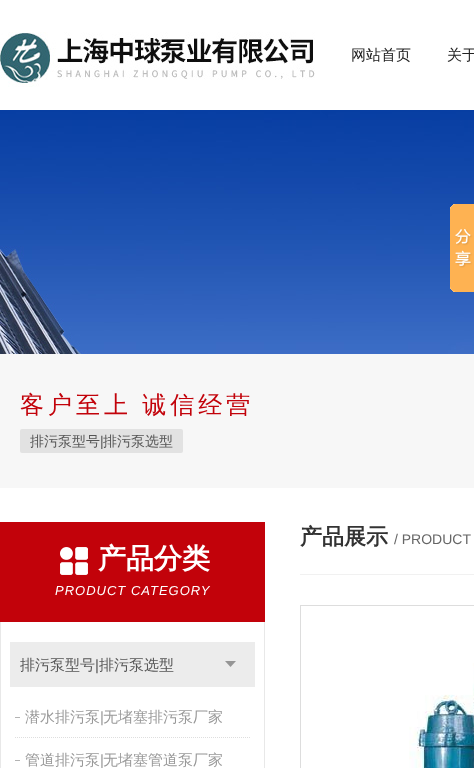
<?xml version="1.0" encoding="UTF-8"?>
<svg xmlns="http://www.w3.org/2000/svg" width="474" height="768">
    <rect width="100%" height="100%" fill="#FFFFFF"/>
    <image x="0" y="32" width="315" height="55" href="img_01.png"/>
    <text x="351" y="60" font-family="WenQuanYi Zen Hei" font-size="15" font-weight="500" fill="#222222">网站首页</text>
    <text x="447" y="60" font-family="WenQuanYi Zen Hei" font-size="15" font-weight="500" fill="#222222">关于</text>
    <image x="0" y="110" width="474" height="244" href="img_02.png"/>
    <image x="450" y="204" width="24" height="88" href="img_03.png"/>
    <rect x="0" y="354" width="474" height="134" fill="#F7F7F7"/>
    <text x="20" y="413" word-spacing="-1" font-family="WenQuanYi Zen Hei" font-size="24" font-weight="500" letter-spacing="4" fill="#C2020A">客户至上 诚信经营</text>
    <rect x="20" y="429" width="163" height="24" rx="2" fill="#E2E2E2"/>
    <text x="30" y="446" font-family="WenQuanYi Zen Hei" font-size="14" font-weight="500" fill="#555555">排污泵型号</text>
    <text x="100" y="446" font-family="Liberation Sans" font-size="14" fill="#555555">|</text>
    <text x="103" y="446" font-family="WenQuanYi Zen Hei" font-size="14" font-weight="500" fill="#555555">排污泵选型</text>
    <rect x="300" y="574" width="174" height="1" fill="#F1F1F1"/>
    <text x="300" y="544" font-family="WenQuanYi Zen Hei" font-size="22" font-weight="700" fill="#333333">产品展示</text>
    <text x="394" y="544" font-family="Liberation Sans" font-size="14" fill="#666666">/ PRODUCT</text>
    <rect x="300.5" y="605.5" width="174" height="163" fill="none" stroke="#DDDDDD"/>
    <image x="409" y="663" width="65" height="105" href="img_04.png"/>
    <rect x="0" y="522" width="265" height="100" fill="#C2020A"/>
    <image x="60" y="547" width="28" height="28" href="img_05.png"/>
    <text x="98" y="568" font-family="WenQuanYi Zen Hei" font-size="28" font-weight="700" fill="#FFFFFF">产品分类</text>
    <text x="55" y="595" font-family="Liberation Sans" font-size="13" font-style="italic" letter-spacing="1" fill="#FFFFFF">PRODUCT CATEGORY</text>
    <rect x="264" y="622" width="1" height="146" fill="#E8E8E8"/>
    <rect x="0" y="622" width="1" height="146" fill="#E8E8E8"/>
    <rect x="10" y="642" width="245" height="45" fill="#ECECEC"/>
    <text x="20" y="670" font-family="WenQuanYi Zen Hei" font-size="15" font-weight="500" fill="#555555">排污泵型号</text>
    <text x="95" y="670" font-family="Liberation Sans" font-size="15" fill="#555555">|</text>
    <text x="99" y="670" font-family="WenQuanYi Zen Hei" font-size="15" font-weight="500" fill="#555555">排污泵选型</text>
    <image x="225" y="661" width="11" height="6" href="img_06.png"/>
    <path d="M 15 737.5 H 250" fill="none" stroke="#DEDEDE" stroke-dasharray="1 1"/>
    <rect x="15" y="717" width="5" height="1" fill="#B3B3B3"/>
    <text x="25" y="722" font-family="WenQuanYi Zen Hei" font-size="15" font-weight="500" fill="#999999">潜水排污泵</text>
    <text x="100" y="722" font-family="Liberation Sans" font-size="15" fill="#999999">|</text>
    <text x="103" y="722" font-family="WenQuanYi Zen Hei" font-size="15" font-weight="500" fill="#999999">无堵塞排污泵厂家</text>
    <rect x="15" y="760" width="5" height="1" fill="#B3B3B3"/>
    <text x="25" y="765" font-family="WenQuanYi Zen Hei" font-size="15" font-weight="500" fill="#999999">管道排污泵</text>
    <text x="100" y="765" font-family="Liberation Sans" font-size="15" fill="#999999">|</text>
    <text x="103" y="765" font-family="WenQuanYi Zen Hei" font-size="15" font-weight="500" fill="#999999">无堵塞管道泵厂家</text>
</svg>
